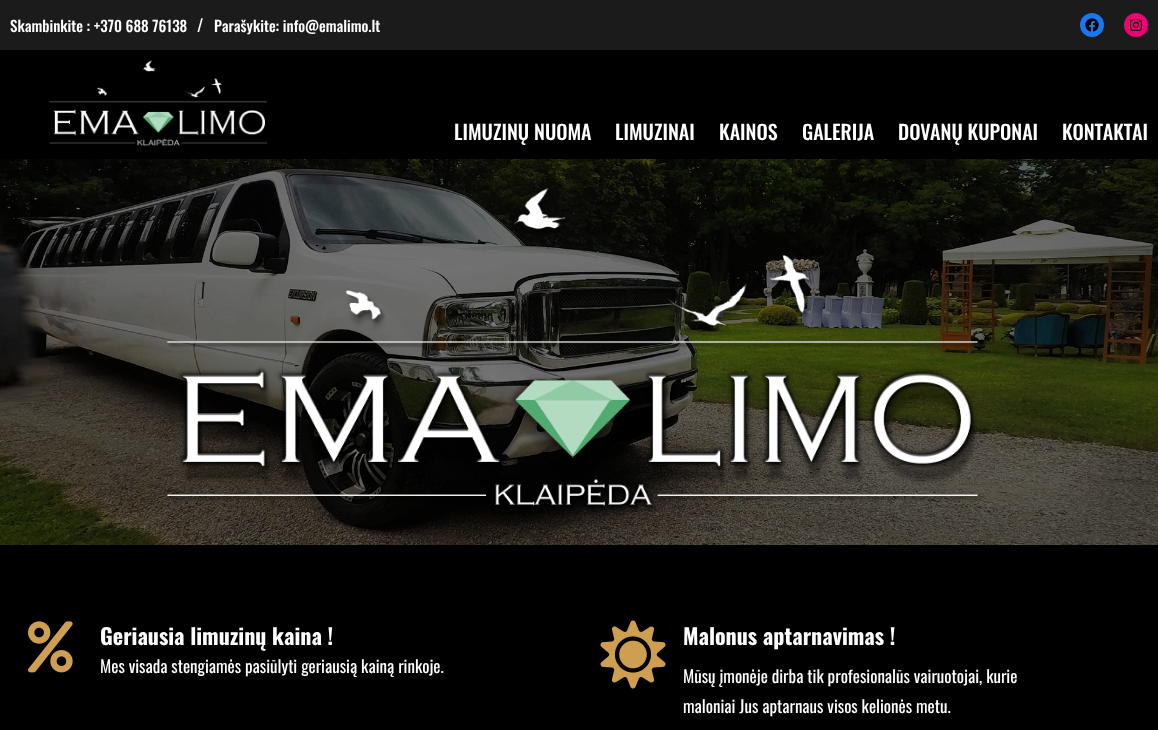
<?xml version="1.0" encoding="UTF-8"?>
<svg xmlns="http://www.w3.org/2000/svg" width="1158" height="730">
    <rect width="100%" height="100%" fill="#000000"/>
    <rect x="0" y="0" width="1158" height="50" fill="#1C1B1B"/>
    <text x="10" y="32" font-family="Oswald" font-size="15" font-weight="500" fill="#FFFFFF">Skambinkite : +370 688 76138</text>
    <text x="197" y="32" font-family="Oswald" font-size="17" fill="#FFFFFF">/</text>
    <text x="214" y="32" font-family="Oswald" font-size="15" font-weight="500" fill="#FFFFFF">Parašykite: info@emalimo.lt</text>
    <circle cx="1092" cy="25" r="12" fill="#1778F2"/>
    <image x="1085" y="18" width="14" height="14" href="img_01.png"/>
    <circle cx="1136" cy="25" r="12" fill="#F00075"/>
    <image x="1130" y="19" width="12" height="12" href="img_02.png"/>
    <image x="49" y="60" width="219" height="86" href="img_03.png"/>
    <text x="454" y="140" font-family="Oswald" font-size="20" font-weight="500" fill="#FFFFFF">LIMUZINŲ NUOMA</text>
    <text x="615" y="140" font-family="Oswald" font-size="20" font-weight="500" fill="#FFFFFF">LIMUZINAI</text>
    <text x="719" y="140" font-family="Oswald" font-size="20" font-weight="500" fill="#FFFFFF">KAINOS</text>
    <text x="802" y="140" font-family="Oswald" font-size="20" font-weight="500" fill="#FFFFFF">GALERIJA</text>
    <text x="898" y="140" font-family="Oswald" font-size="20" font-weight="500" fill="#FFFFFF">DOVANŲ KUPONAI</text>
    <text x="1062" y="140" font-family="Oswald" font-size="20" font-weight="500" fill="#FFFFFF">KONTAKTAI</text>
    <image x="0" y="159" width="1158" height="386" href="img_04.png"/>
    <image x="166" y="187" width="816" height="328" href="img_05.png"/>
    <image x="28" y="621" width="45" height="52" href="img_06.png"/>
    <text x="100" y="645" font-family="Oswald" font-size="22" font-weight="700" fill="#FFFFFF">Geriausia limuzinų kaina !</text>
    <text x="100" y="673" font-family="Oswald" font-size="17" fill="#FFFFFF">Mes visada stengiamės pasiūlyti geriausią kainą rinkoje.</text>
    <image x="600" y="620" width="66" height="69" href="img_07.png"/>
    <text x="683" y="645" font-family="Oswald" font-size="22" font-weight="700" fill="#FFFFFF">Malonus aptarnavimas !</text>
    <text font-family="Oswald" font-size="17" fill="#FFFFFF">
        <tspan x="683" y="683">Mūsų įmonėje dirba tik profesionalūs vairuotojai, kurie</tspan>
        <tspan x="683" y="713">maloniai Jus aptarnaus visos kelionės metu.</tspan>
    </text>
</svg>
